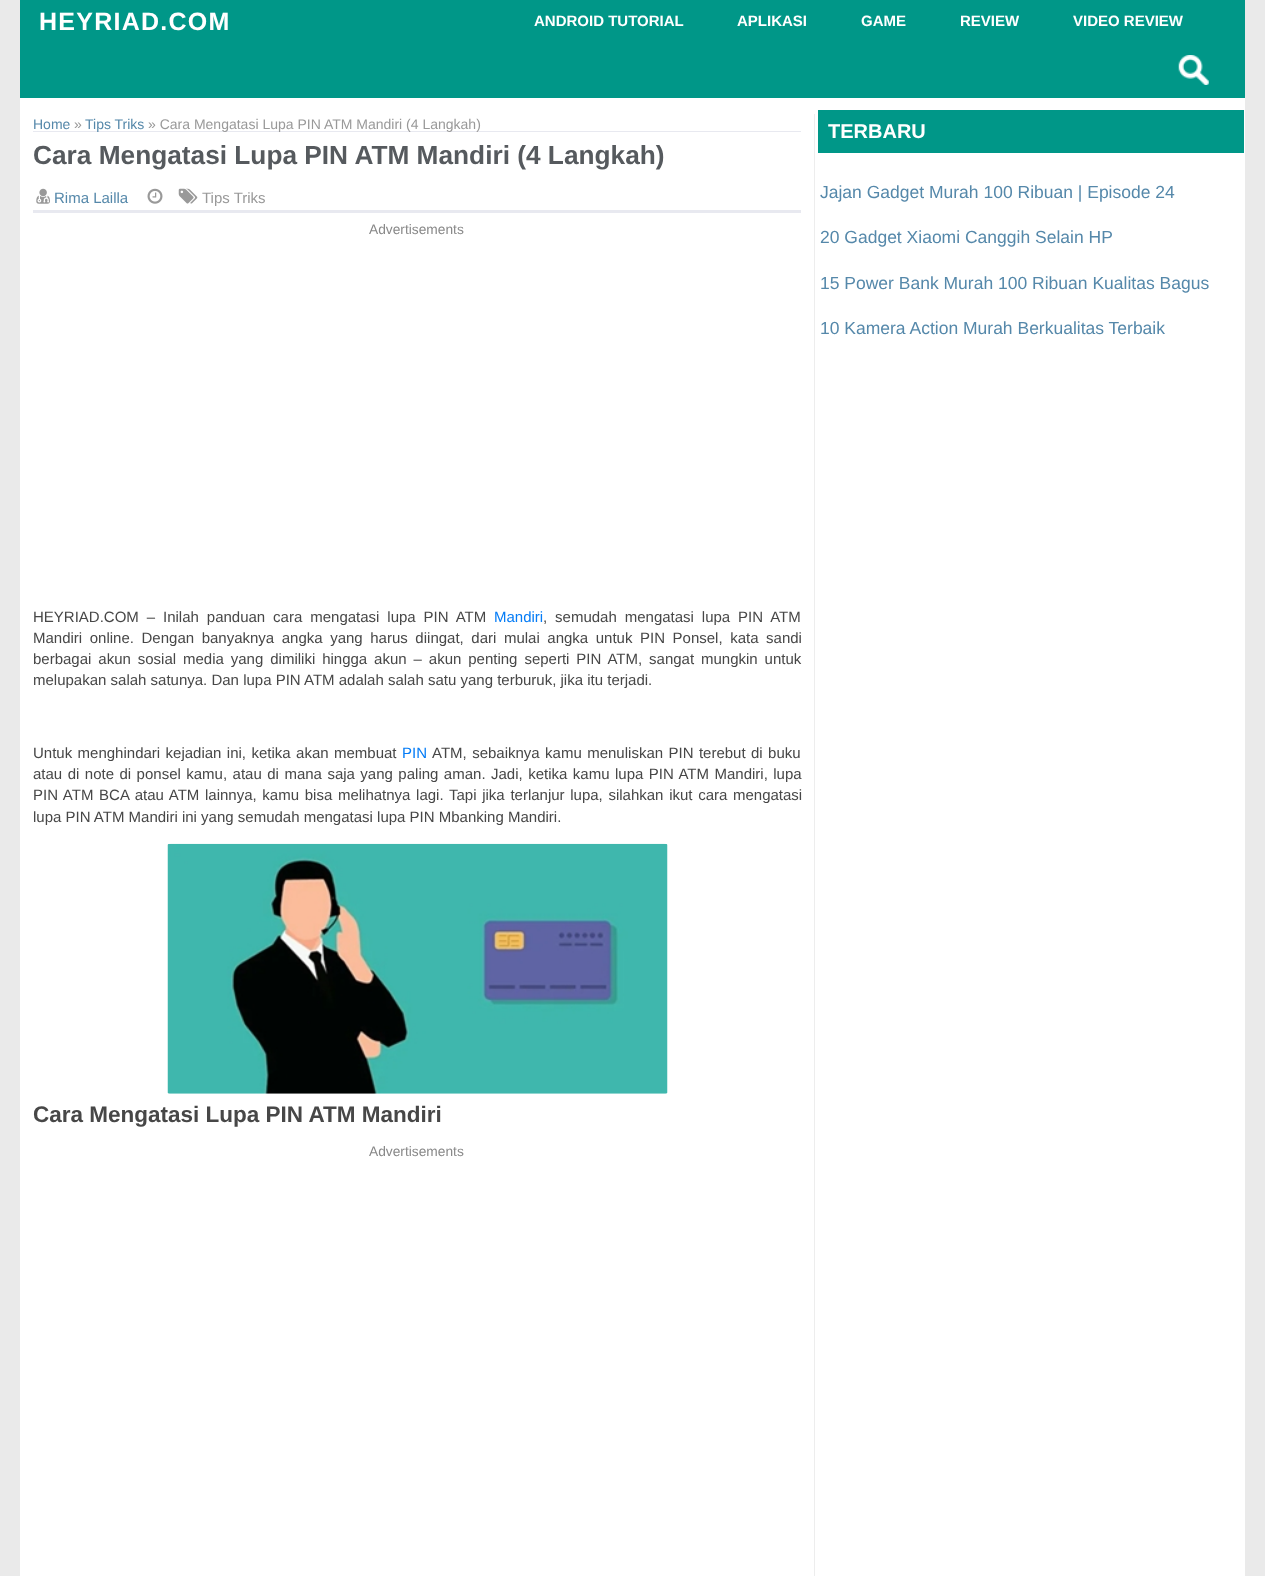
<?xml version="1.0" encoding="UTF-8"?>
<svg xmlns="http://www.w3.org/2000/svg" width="1265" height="1576">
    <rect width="100%" height="100%" fill="#EAEAEA"/>
    <rect x="20" y="98" width="1225" height="1478" fill="#FFFFFF"/>
    <rect x="20" y="0" width="1225" height="98" fill="#009788"/>
    <text x="39" y="30" font-family="Liberation Sans" font-size="25" font-weight="700" letter-spacing="1.25" fill="#FFFFFF">HEYRIAD.COM</text>
    <text x="534" y="26" font-family="Liberation Sans" font-size="15" font-weight="700" fill="#FFFFFF">ANDROID TUTORIAL</text>
    <text x="737" y="26" font-family="Liberation Sans" font-size="15" font-weight="700" fill="#FFFFFF">APLIKASI</text>
    <text x="861" y="26" font-family="Liberation Sans" font-size="15" font-weight="700" fill="#FFFFFF">GAME</text>
    <text x="960" y="26" font-family="Liberation Sans" font-size="15" font-weight="700" fill="#FFFFFF">REVIEW</text>
    <text x="1073" y="26" font-family="Liberation Sans" font-size="15" font-weight="700" fill="#FFFFFF">VIDEO REVIEW</text>
    <image x="1178" y="55" width="31" height="30" href="img_01.png"/>
    <rect x="814" y="114" width="1" height="1462" fill="#EDEDED"/>
    <rect x="33" y="131" width="768" height="1" fill="#E8E9F0"/>
    <text x="33" y="129" font-family="Liberation Sans" font-size="14" fill="#5588AA">Home</text>
    <text x="74" y="129" font-family="Liberation Sans" font-size="14" fill="#999999">»</text>
    <text x="85" y="129" font-family="Liberation Sans" font-size="14" fill="#5588AA">Tips Triks</text>
    <text x="148" y="129" font-family="Liberation Sans" font-size="14" fill="#999999">» Cara Mengatasi Lupa PIN ATM Mandiri (4 Langkah)</text>
    <text x="33" y="164" font-family="Liberation Sans" font-size="26.25" font-weight="700" fill="#565A5E">Cara Mengatasi Lupa PIN ATM Mandiri (4 Langkah)</text>
    <rect x="33" y="210" width="768" height="3" fill="#E8E9F0"/>
    <image x="36" y="188" width="14" height="16" href="img_02.png"/>
    <text x="54" y="203" font-family="Liberation Sans" font-size="15" fill="#5588AA">Rima Lailla</text>
    <image x="147" y="188" width="16" height="16" href="img_03.png"/>
    <image x="178" y="188" width="20" height="16" href="img_04.png"/>
    <text x="202" y="203" font-family="Liberation Sans" font-size="15" fill="#999999">Tips Triks</text>
    <text x="369" y="234" font-family="Liberation Sans" font-size="13.75" fill="#888888">Advertisements</text>
    <text x="33" y="622" word-spacing="3.75" font-family="Liberation Sans" font-size="15" fill="#474747">HEYRIAD.COM – Inilah panduan cara mengatasi lupa PIN ATM</text>
    <text x="494" y="622" font-family="Liberation Sans" font-size="15" fill="#057CF6">Mandiri</text>
    <text x="543" y="622" word-spacing="3.75" font-family="Liberation Sans" font-size="15" fill="#474747">, semudah mengatasi lupa PIN ATM</text>
    <text font-family="Liberation Sans" font-size="15" fill="#474747">
        <tspan x="33" y="643" word-spacing="3.4">Mandiri online. Dengan banyaknya angka yang harus diingat, dari mulai angka untuk PIN Ponsel, kata sandi</tspan>
        <tspan x="33" y="664" word-spacing="2.75">berbagai akun sosial media yang dimiliki hingga akun – akun penting seperti PIN ATM, sangat mungkin untuk</tspan>
        <tspan x="33" y="685">melupakan salah satunya. Dan lupa PIN ATM adalah salah satu yang terburuk, jika itu terjadi.</tspan>
    </text>
    <text x="33" y="758" word-spacing="1.25" font-family="Liberation Sans" font-size="15" fill="#474747">Untuk menghindari kejadian ini, ketika akan membuat</text>
    <text x="402" y="758" font-family="Liberation Sans" font-size="15" fill="#057CF6">PIN</text>
    <text x="432" y="758" word-spacing="1.25" font-family="Liberation Sans" font-size="15" fill="#474747">ATM, sebaiknya kamu menuliskan PIN terebut di buku</text>
    <text font-family="Liberation Sans" font-size="15" fill="#474747">
        <tspan x="33" y="779" word-spacing="1.3">atau di note di ponsel kamu, atau di mana saja yang paling aman. Jadi, ketika kamu lupa PIN ATM Mandiri, lupa</tspan>
        <tspan x="33" y="800" word-spacing="1.5">PIN ATM BCA atau ATM lainnya, kamu bisa melihatnya lagi. Tapi jika terlanjur lupa, silahkan ikut cara mengatasi</tspan>
        <tspan x="33" y="822">lupa PIN ATM Mandiri ini yang semudah mengatasi lupa PIN Mbanking Mandiri.</tspan>
    </text>
    <image x="167" y="843" width="501" height="251" href="img_05.png"/>
    <text x="33" y="1122" font-family="Liberation Sans" font-size="22.5" font-weight="700" fill="#474747">Cara Mengatasi Lupa PIN ATM Mandiri</text>
    <text x="369" y="1156" font-family="Liberation Sans" font-size="13.75" fill="#888888">Advertisements</text>
    <rect x="818" y="110" width="426" height="43" fill="#009788"/>
    <text x="828" y="138" font-family="Liberation Sans" font-size="20" font-weight="700" fill="#FFFFFF">TERBARU</text>
    <text x="820" y="198" font-family="Liberation Sans" font-size="17.5" fill="#5588AA">Jajan Gadget Murah 100 Ribuan | Episode 24</text>
    <text x="820" y="243" font-family="Liberation Sans" font-size="17.5" fill="#5588AA">20 Gadget Xiaomi Canggih Selain HP</text>
    <text x="820" y="289" font-family="Liberation Sans" font-size="17.5" fill="#5588AA">15 Power Bank Murah 100 Ribuan Kualitas Bagus</text>
    <text x="820" y="334" font-family="Liberation Sans" font-size="17.5" fill="#5588AA">10 Kamera Action Murah Berkualitas Terbaik</text>
</svg>
